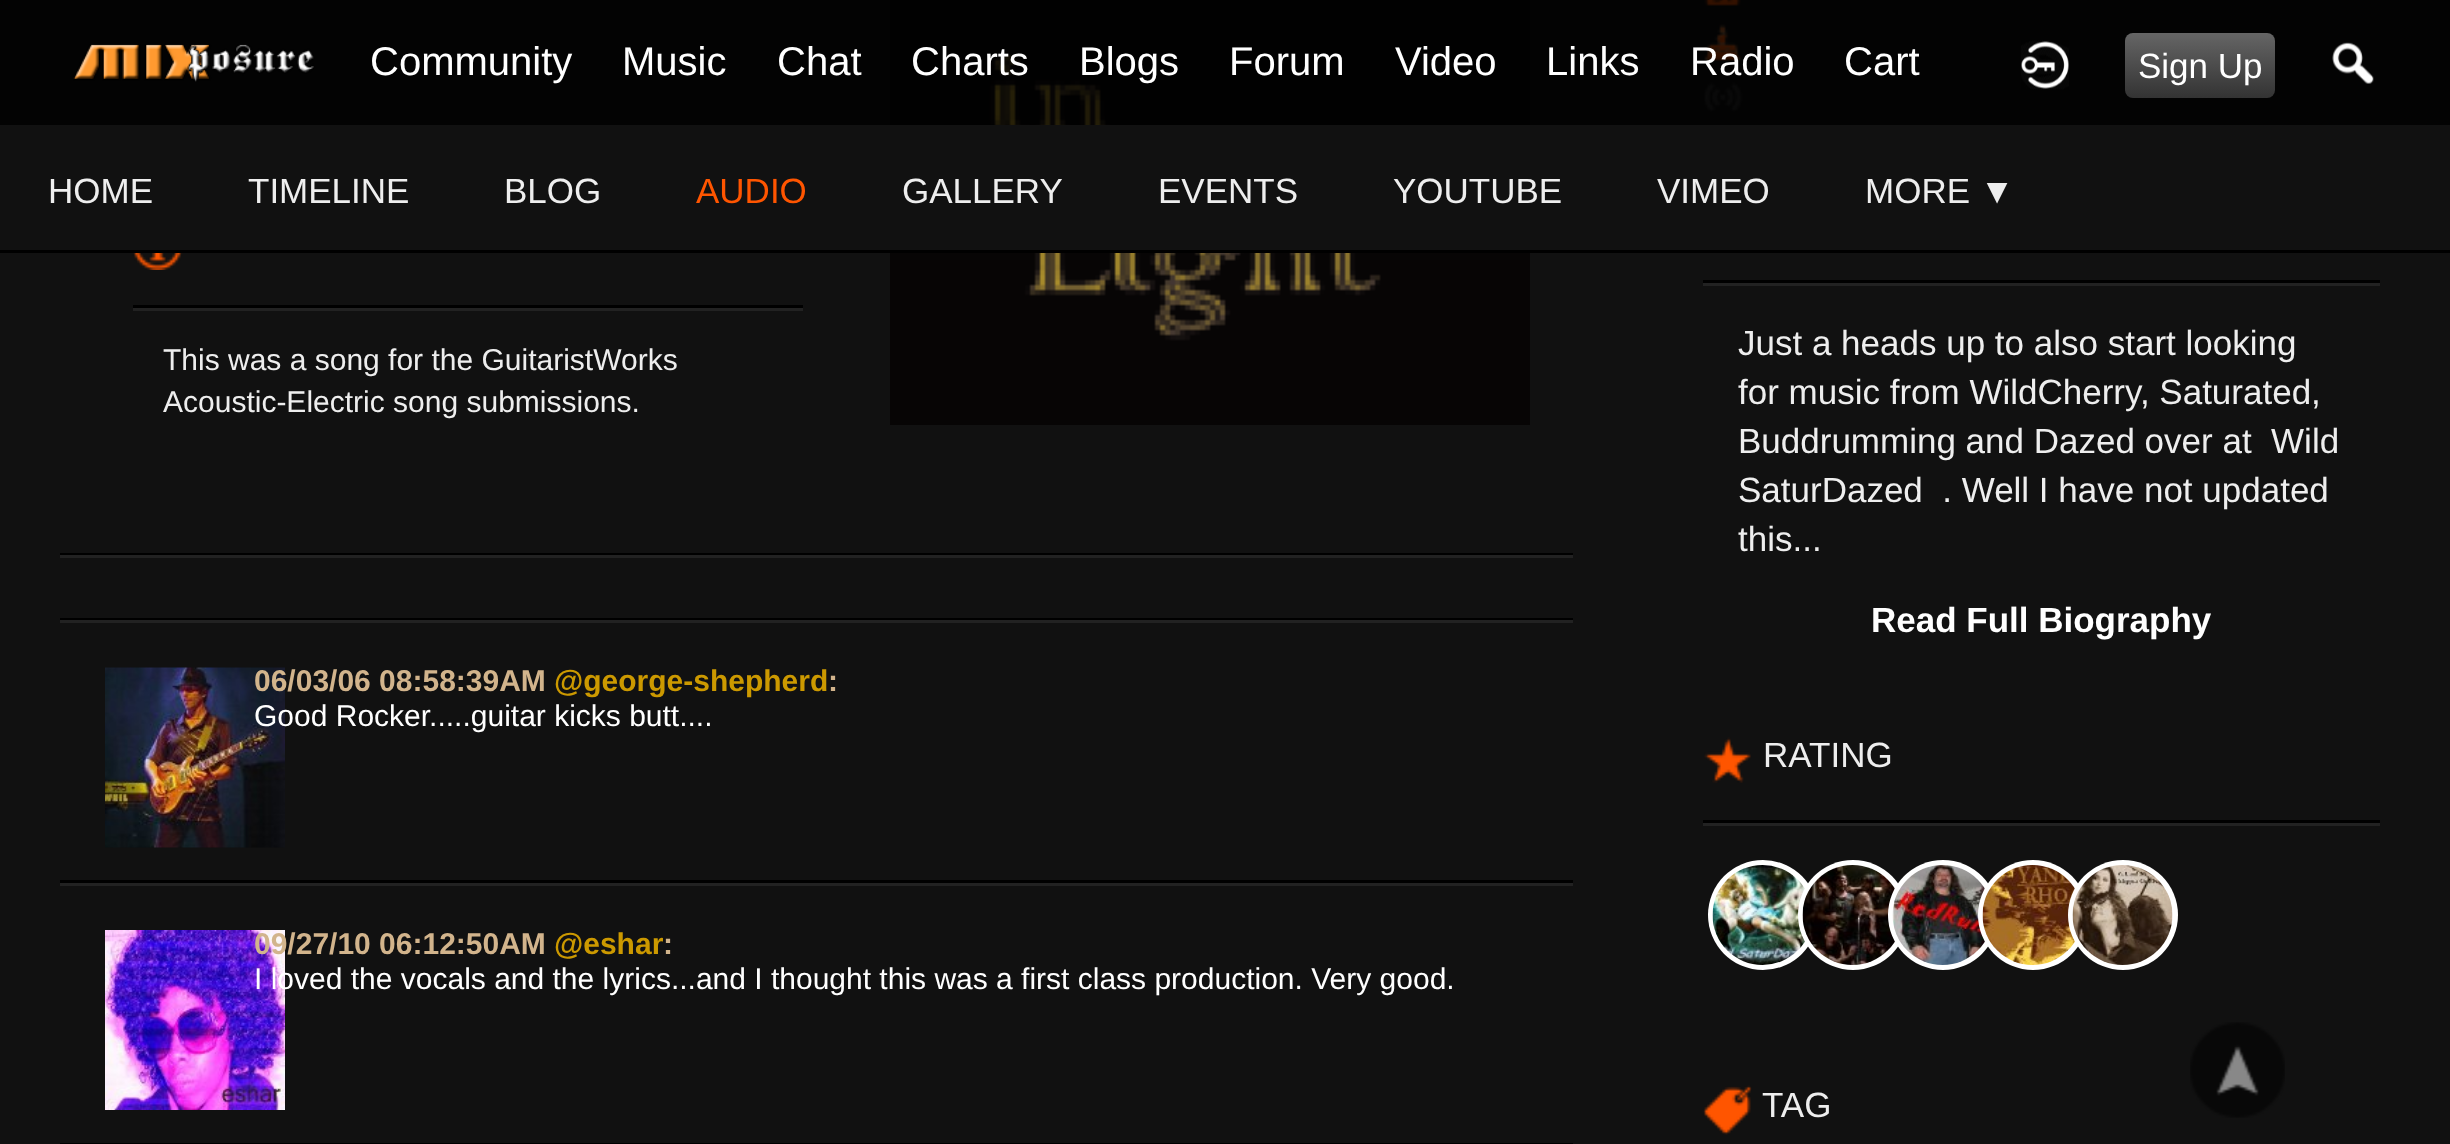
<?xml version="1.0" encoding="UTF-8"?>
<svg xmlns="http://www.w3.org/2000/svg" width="2450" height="1144">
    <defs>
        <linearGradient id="g1" gradientUnits="userSpaceOnUse" x1="2200" y1="32" x2="2200" y2="98"><stop offset="0" stop-color="#666666"/><stop offset="1" stop-color="#333333"/></linearGradient>
    </defs>
    <rect width="100%" height="100%" fill="#111111"/>
    <image x="890" y="0" width="640" height="425" href="img_05.png"/>
    <image x="1704" y="0" width="37" height="6" href="img_08.png"/>
    <image x="1704" y="24" width="37" height="37" href="img_09.png"/>
    <image x="1704" y="82" width="39" height="30" href="img_10.png"/>
    <rect x="0" y="0" width="2450" height="125" fill="#000000" fill-opacity="0.8"/>
    <image x="73" y="44" width="241" height="38" href="img_01.png"/>
    <text x="370" y="75" font-family="Liberation Sans" font-size="40" fill="#FFFFFF">Community</text>
    <text x="622" y="75" font-family="Liberation Sans" font-size="40" fill="#FFFFFF">Music</text>
    <text x="777" y="75" font-family="Liberation Sans" font-size="40" fill="#FFFFFF">Chat</text>
    <text x="911" y="75" font-family="Liberation Sans" font-size="40" fill="#FFFFFF">Charts</text>
    <text x="1079" y="75" font-family="Liberation Sans" font-size="40" fill="#FFFFFF">Blogs</text>
    <text x="1229" y="75" font-family="Liberation Sans" font-size="40" fill="#FFFFFF">Forum</text>
    <text x="1395" y="75" font-family="Liberation Sans" font-size="40" fill="#FFFFFF">Video</text>
    <text x="1546" y="75" font-family="Liberation Sans" font-size="40" fill="#FFFFFF">Links</text>
    <text x="1690" y="75" font-family="Liberation Sans" font-size="40" fill="#FFFFFF">Radio</text>
    <text x="1844" y="75" font-family="Liberation Sans" font-size="40" fill="#FFFFFF">Cart</text>
    <image x="2021" y="40" width="48" height="50" href="img_02.png"/>
    <rect x="2125" y="33" width="150" height="65" rx="8" fill="url(#g1)"/>
    <text x="2138" y="78" font-family="Liberation Sans" font-size="35" fill="#FFFFFF">Sign Up</text>
    <image x="2332" y="42" width="42" height="42" href="img_03.png"/>
    <rect x="890" y="125" width="640" height="125" fill="#111111"/>
    <rect x="0" y="250" width="2450" height="3" fill="#000000"/>
    <text x="48" y="203" font-family="Liberation Sans" font-size="35" fill="#EEEEEE">HOME</text>
    <text x="248" y="203" font-family="Liberation Sans" font-size="35" fill="#EEEEEE">TIMELINE</text>
    <text x="504" y="203" font-family="Liberation Sans" font-size="35" fill="#EEEEEE">BLOG</text>
    <text x="696" y="203" font-family="Liberation Sans" font-size="35" fill="#FF5500">AUDIO</text>
    <text x="902" y="203" font-family="Liberation Sans" font-size="35" fill="#EEEEEE">GALLERY</text>
    <text x="1158" y="203" font-family="Liberation Sans" font-size="35" fill="#EEEEEE">EVENTS</text>
    <text x="1393" y="203" font-family="Liberation Sans" font-size="35" fill="#EEEEEE">YOUTUBE</text>
    <text x="1657" y="203" font-family="Liberation Sans" font-size="35" fill="#EEEEEE">VIMEO</text>
    <text x="1865" y="203" font-family="Liberation Sans" font-size="35" fill="#EEEEEE">MORE ▼</text>
    <rect x="60" y="553" width="1513" height="2" fill="#000000"/>
    <rect x="133" y="305" width="670" height="3" fill="#000000"/>
    <image x="132" y="253" width="51" height="17" href="img_04.png"/>
    <rect x="133" y="308" width="670" height="3" fill="#222222"/>
    <text font-family="Liberation Sans" font-size="30" fill="#EEEEEE">
        <tspan x="163" y="370">This was a song for the GuitaristWorks</tspan>
        <tspan x="163" y="412">Acoustic-Electric song submissions.</tspan>
    </text>
    <rect x="60" y="555" width="1513" height="3" fill="#222222"/>
    <rect x="60" y="618" width="1513" height="2" fill="#000000"/>
    <rect x="60" y="620" width="1513" height="3" fill="#222222"/>
    <rect x="60" y="880" width="1513" height="3" fill="#000000"/>
    <image x="105" y="667" width="180" height="181" href="img_06.png"/>
    <text x="254" y="691" font-family="Liberation Sans" font-size="30" font-weight="700" fill="#D2B48C">06/03/06 08:58:39AM</text>
    <text x="554" y="691" font-family="Liberation Sans" font-size="30" font-weight="700" fill="#CC9900">@george-shepherd</text>
    <text x="828" y="691" font-family="Liberation Sans" font-size="30" font-weight="700" fill="#D2B48C">:</text>
    <text x="254" y="726" font-family="Liberation Sans" font-size="30" fill="#FFFFFF">Good Rocker.....guitar kicks butt....</text>
    <rect x="60" y="883" width="1513" height="3" fill="#222222"/>
    <rect x="60" y="1143" width="1513" height="1" fill="#000000"/>
    <image x="105" y="930" width="180" height="180" href="img_07.png"/>
    <text x="254" y="954" font-family="Liberation Sans" font-size="30" font-weight="700" fill="#D2B48C">09/27/10 06:12:50AM</text>
    <text x="554" y="954" font-family="Liberation Sans" font-size="30" font-weight="700" fill="#CC9900">@eshar</text>
    <text x="663" y="954" font-family="Liberation Sans" font-size="30" font-weight="700" fill="#D2B48C">:</text>
    <text x="254" y="989" font-family="Liberation Sans" font-size="30" fill="#FFFFFF">I loved the vocals and the lyrics...and I thought this was a first class production. Very good.</text>
    <rect x="1703" y="280" width="677" height="3" fill="#000000"/>
    <rect x="1703" y="283" width="677" height="3" fill="#222222"/>
    <text font-family="Liberation Sans" font-size="35" fill="#EEEEEE" xml:space="preserve"><tspan x="1738" y="355">Just a heads up to also start looking</tspan><tspan x="1738" y="404">for music from WildCherry, Saturated,</tspan><tspan x="1738" y="453">Buddrumming and Dazed over at  Wild</tspan><tspan x="1738" y="502">SaturDazed  . Well I have not updated</tspan><tspan x="1738" y="551">this...</tspan></text>
    <text x="1871" y="632" font-family="Liberation Sans" font-size="35" font-weight="700" fill="#FFFFFF">Read Full Biography</text>
    <rect x="1703" y="820" width="677" height="3" fill="#000000"/>
    <image x="1704" y="737" width="47" height="46" href="img_11.png"/>
    <text x="1763" y="767" font-family="Liberation Sans" font-size="35" fill="#EEEEEE">RATING</text>
    <rect x="1703" y="823" width="677" height="3" fill="#222222"/>
    <circle cx="1763" cy="915" r="55" fill="#FFFFFF"/>
    <image x="1712" y="865" width="94" height="100" href="img_12.png"/>
    <circle cx="1853" cy="915" r="55" fill="#FFFFFF"/>
    <image x="1802" y="865" width="94" height="100" href="img_13.png"/>
    <circle cx="1943" cy="915" r="55" fill="#FFFFFF"/>
    <image x="1892" y="865" width="94" height="100" href="img_14.png"/>
    <circle cx="2033" cy="915" r="55" fill="#FFFFFF"/>
    <image x="1982" y="865" width="94" height="100" href="img_15.png"/>
    <circle cx="2123" cy="915" r="55" fill="#FFFFFF"/>
    <image x="2072" y="865" width="101" height="100" href="img_16.png"/>
    <image x="1702" y="1085" width="50" height="50" href="img_17.png"/>
    <text x="1762" y="1117" font-family="Liberation Sans" font-size="35" fill="#EEEEEE">TAG</text>
    <image x="2190" y="1022" width="95" height="96" href="img_18.png"/>
</svg>
